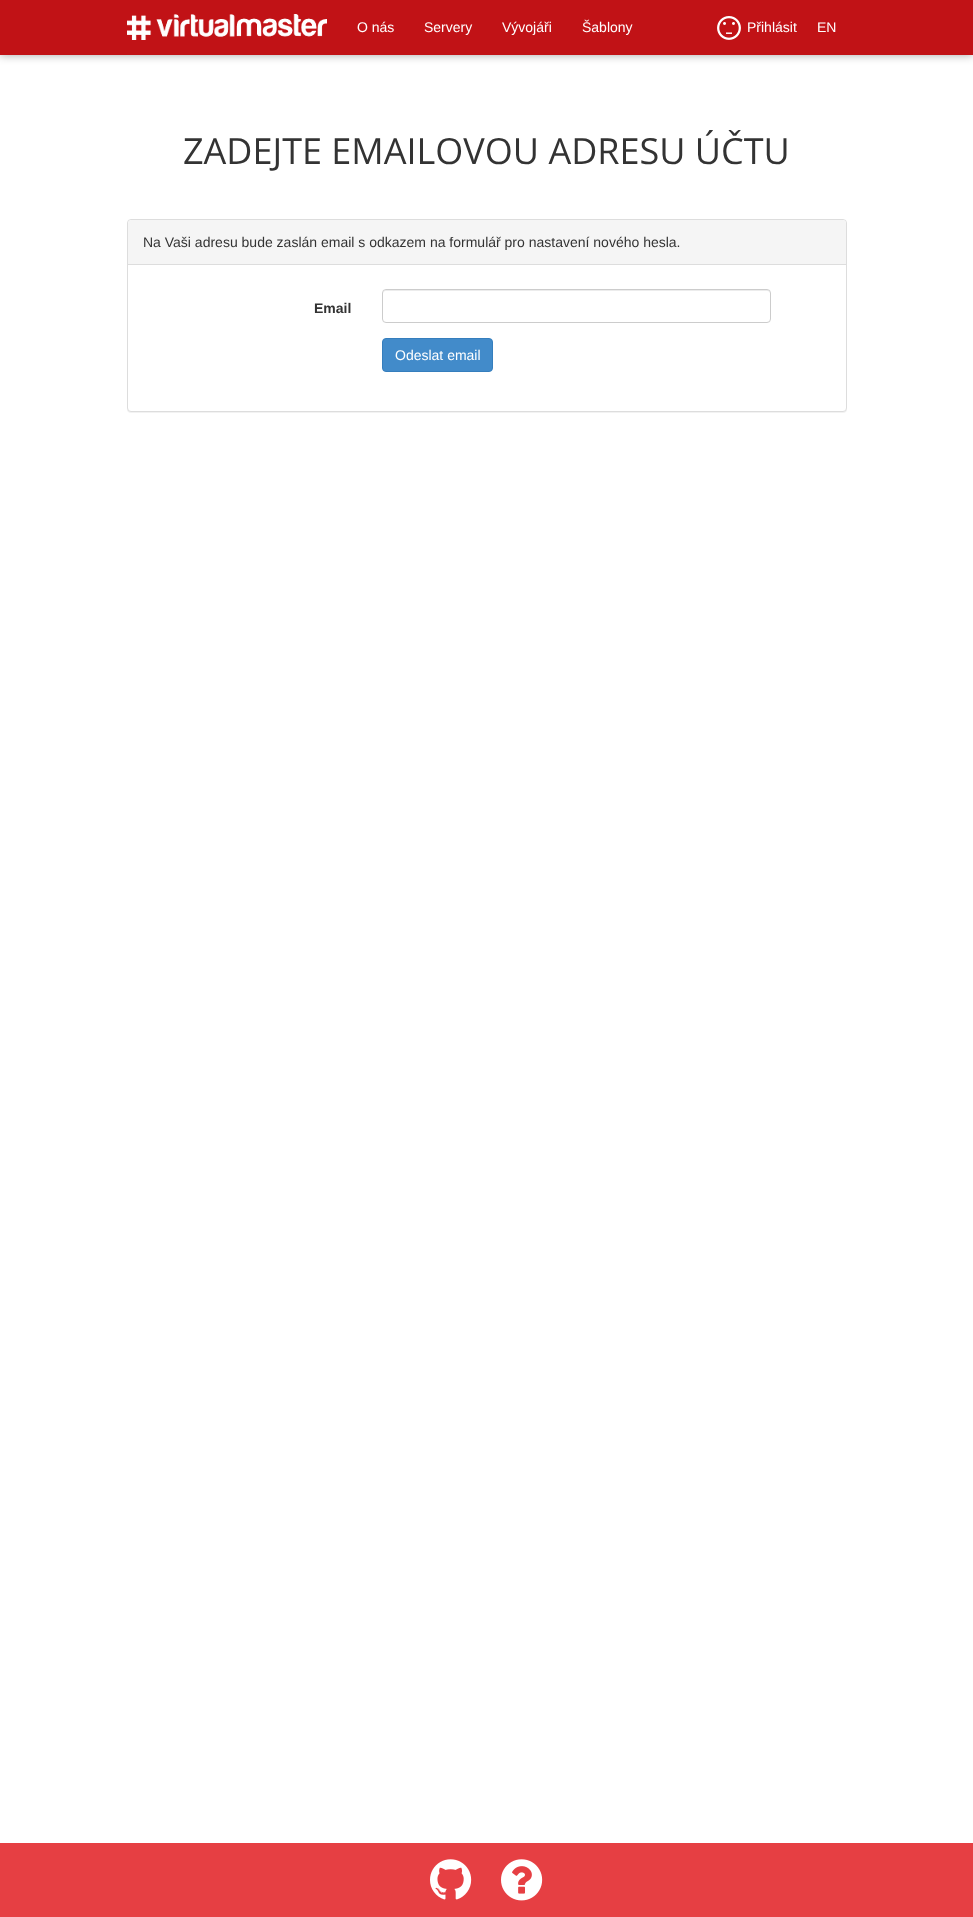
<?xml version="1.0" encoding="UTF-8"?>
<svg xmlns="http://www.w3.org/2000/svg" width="973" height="1917">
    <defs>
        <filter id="blur1" x="-50%" y="-200%" width="200%" height="500%"><feGaussianBlur stdDeviation="5"/></filter>
        <filter id="blur2" x="-50%" y="-200%" width="200%" height="500%"><feGaussianBlur stdDeviation="0.5"/></filter>
    </defs>
    <rect width="100%" height="100%" fill="#FFFFFF"/>
    <rect x="0" y="0" width="973" height="55" fill="#000000" fill-opacity="0.35" filter="url(#blur1)"/>
    <rect x="0" y="0" width="973" height="55" fill="#C11216"/>
    <image x="127" y="14" width="200" height="26" href="img_01.png"/>
    <text x="357" y="32" font-family="Liberation Sans" font-size="14" fill="#FFFFFF">O nás</text>
    <text x="424" y="32" font-family="Liberation Sans" font-size="14" fill="#FFFFFF">Servery</text>
    <text x="502" y="32" font-family="Liberation Sans" font-size="14" fill="#FFFFFF">Vývojáři</text>
    <text x="582" y="32" font-family="Liberation Sans" font-size="14" fill="#FFFFFF">Šablony</text>
    <image x="717" y="16" width="24" height="24" href="img_02.png"/>
    <text x="747" y="32" font-family="Liberation Sans" font-size="14" fill="#FFFFFF">Přihlásit</text>
    <text x="817" y="32" font-family="Liberation Sans" font-size="14" fill="#FFFFFF">EN</text>
    <text x="183" y="164" font-family="Open Sans" font-size="36" fill="#333333">ZADEJTE EMAILOVOU ADRESU ÚČTU</text>
    <rect x="127" y="220" width="720" height="193" rx="4" fill="#000000" fill-opacity="0.05" filter="url(#blur2)"/>
    <rect x="127.5" y="219.5" width="719" height="192" rx="3.5" fill="#FFFFFF" stroke="#DDDDDD"/>
    <path d="M 131 220 H 843 C 844.5 220 846 221.5 846 223 V 265 H 128 V 223 C 128 221.5 129.5 220 131 220 Z" fill="#F5F5F5"/>
    <rect x="128" y="264" width="718" height="1" fill="#DDDDDD"/>
    <text x="143" y="247" font-family="Liberation Sans" font-size="14" fill="#333333">Na Vaši adresu bude zaslán email s odkazem na formulář pro nastavení nového hesla.</text>
    <text x="314" y="313" font-family="Liberation Sans" font-size="14" font-weight="700" fill="#333333">Email</text>
    <path d="M 386 291 H 767 C 769 291 770 292 770 294 C 770 292 769 290 767 290 H 386 L 384 291 L 383 294 C 383 292 384 291 386 291 Z" fill="#ECECEC"/>
    <rect x="382.5" y="289.5" width="388" height="33" rx="3.5" fill="none" stroke="#CCCCCC"/>
    <rect x="382.5" y="338.5" width="110" height="33" rx="3.5" fill="#428BCA" stroke="#357EBD"/>
    <text x="395" y="360" font-family="Liberation Sans" font-size="14" fill="#FFFFFF">Odeslat email</text>
    <rect x="0" y="1843" width="973" height="74" fill="#E63F43"/>
    <image x="430" y="1859" width="42" height="41" href="img_03.png"/>
    <image x="501" y="1859" width="42" height="42" href="img_04.png"/>
</svg>
